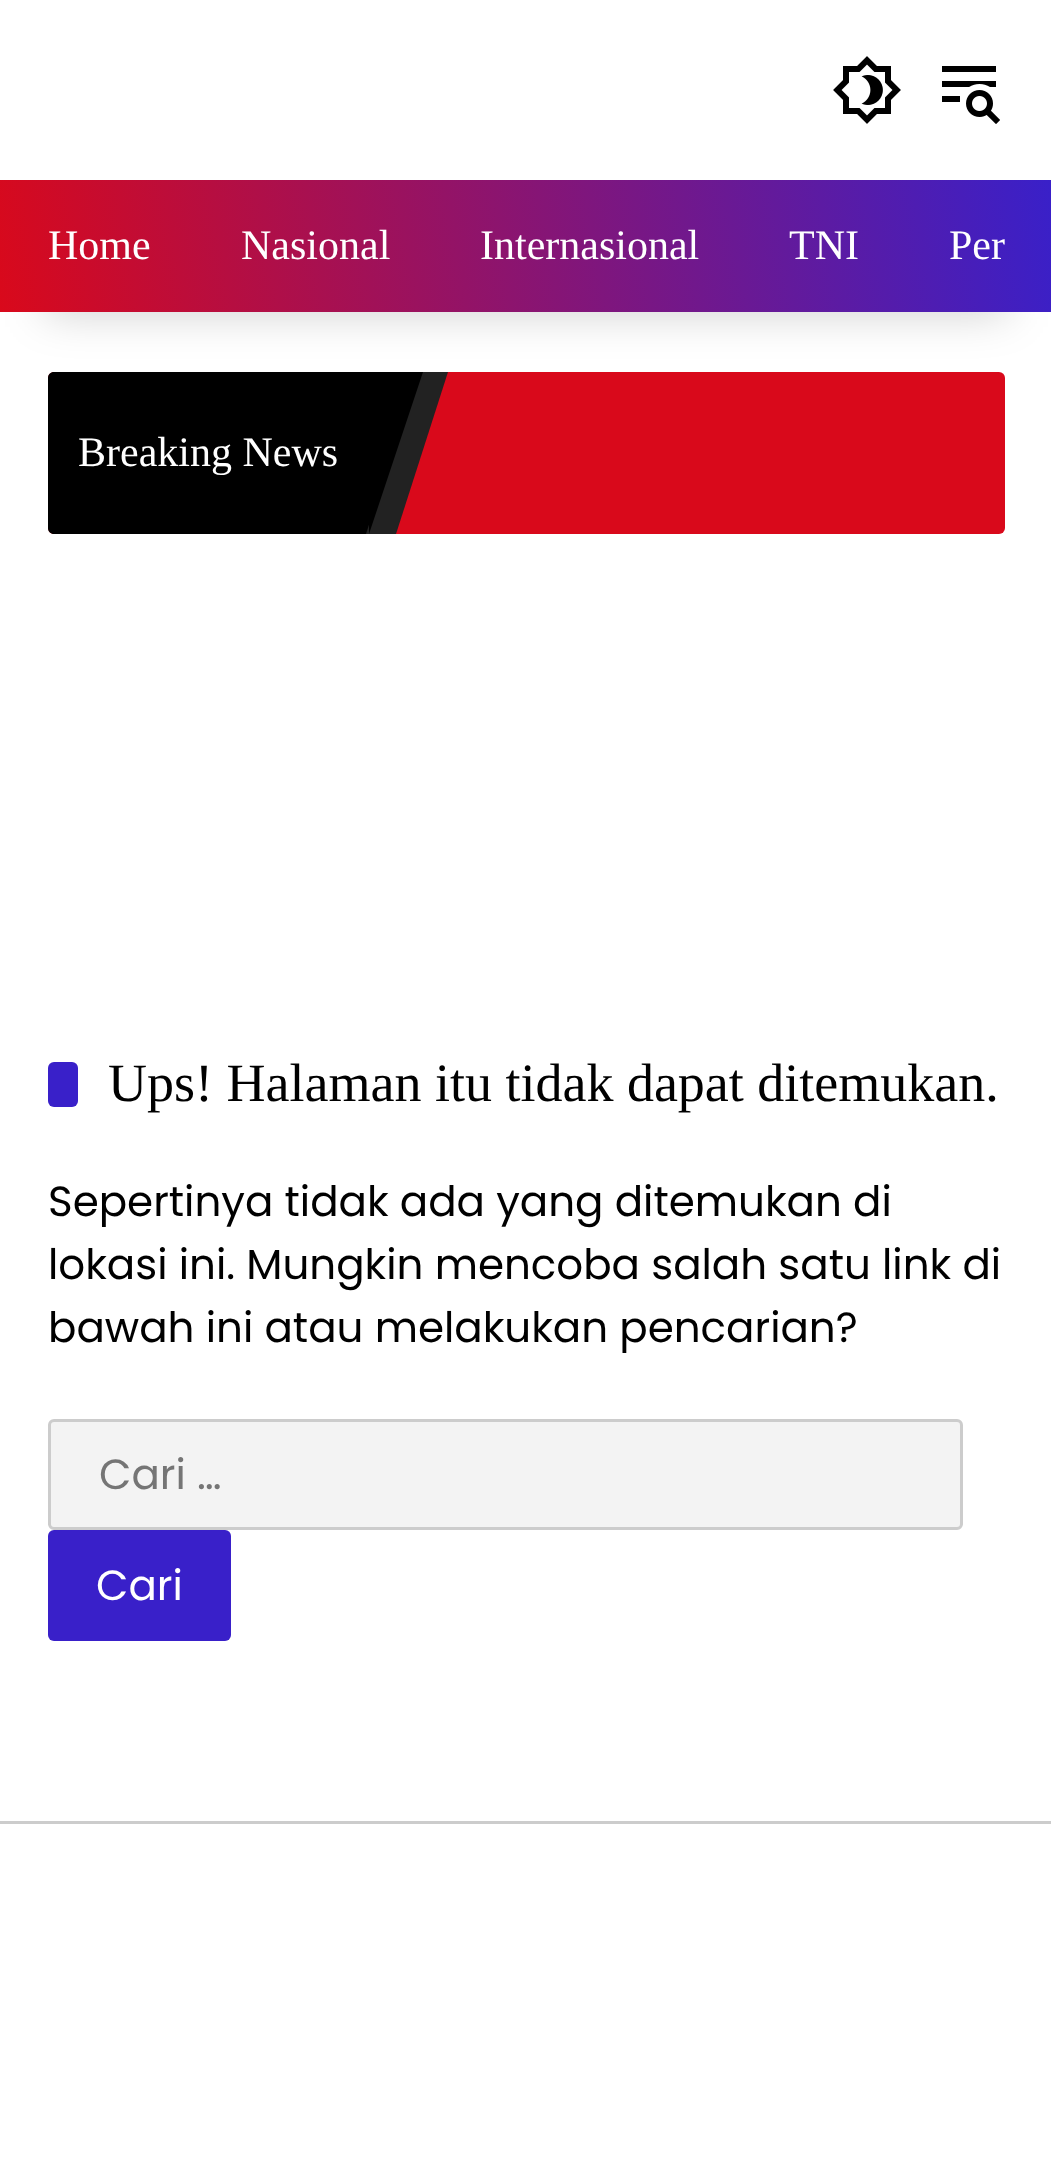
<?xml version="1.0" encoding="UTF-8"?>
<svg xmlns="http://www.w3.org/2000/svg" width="1051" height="2176">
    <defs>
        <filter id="blur1" x="-50%" y="-200%" width="200%" height="500%"><feGaussianBlur stdDeviation="22.5"/></filter>
        <linearGradient id="g1" gradientUnits="userSpaceOnUse" x1="4.6" y1="338" x2="1048" y2="154"><stop offset="0" stop-color="#D9091B"/><stop offset="1" stop-color="#3920C9"/></linearGradient>
    </defs>
    <rect width="100%" height="100%" fill="#FFFFFF"/>
    <image x="833" y="56" width="68" height="68" href="img_01.png"/>
    <image x="942" y="66" width="58" height="58" href="img_02.png"/>
    <rect x="48" y="372" width="957" height="162" rx="6" fill="#D9091B"/>
    <path d="M 54 372 H 369 V 534 H 54 C 50.5 534 48 531.5 48 528 V 378 C 48 374.5 50.5 372 54 372 Z" fill="#000000"/>
    <path d="M 418 372 H 448 L 396 534 H 366 Z" fill="#222222"/>
    <path d="M 369 372 H 423 L 369 534 Z" fill="#000000"/>
    <rect x="45" y="270" width="963" height="42" fill="#000000" fill-opacity="0.2" filter="url(#blur1)"/>
    <rect x="0" y="180" width="1051" height="132" fill="url(#g1)"/>
    <text x="48" y="259" font-family="Liberation Serif" font-size="42" fill="#FFFFFF">Home</text>
    <text x="241" y="259" font-family="Liberation Serif" font-size="42" fill="#FFFFFF">Nasional</text>
    <text x="480" y="259" font-family="Liberation Serif" font-size="42" fill="#FFFFFF">Internasional</text>
    <text x="789" y="259" font-family="Liberation Serif" font-size="42" fill="#FFFFFF">TNI</text>
    <text x="949" y="259" font-family="Liberation Serif" font-size="42" fill="#FFFFFF">Per</text>
    <text x="78" y="466" font-family="Liberation Serif" font-size="42" fill="#FFFFFF">Breaking News</text>
    <rect x="48" y="1062" width="30" height="45" rx="6" fill="#3920C9"/>
    <text x="108" y="1101" font-family="Liberation Serif" font-size="54" fill="#000000">Ups! Halaman itu tidak dapat ditemukan.</text>
    <text font-family="Poppins" font-size="42" fill="#000000">
        <tspan x="48" y="1216">Sepertinya tidak ada yang ditemukan di</tspan>
        <tspan x="48" y="1279">lokasi ini. Mungkin mencoba salah satu link di</tspan>
        <tspan x="48" y="1342">bawah ini atau melakukan pencarian?</tspan>
    </text>
    <rect x="49.5" y="1420.5" width="912" height="108" rx="4.5" fill="#F3F3F3" stroke="#CCCCCC" stroke-width="3"/>
    <text x="99" y="1489" font-family="Poppins" font-size="42" fill="#757575">Cari …</text>
    <rect x="48" y="1530" width="183" height="111" rx="6" fill="#3920C9"/>
    <text x="96" y="1600" font-family="Poppins" font-size="42" fill="#FFFFFF">Cari</text>
    <rect x="0" y="1821" width="1051" height="3" fill="#CCCCCC"/>
</svg>
